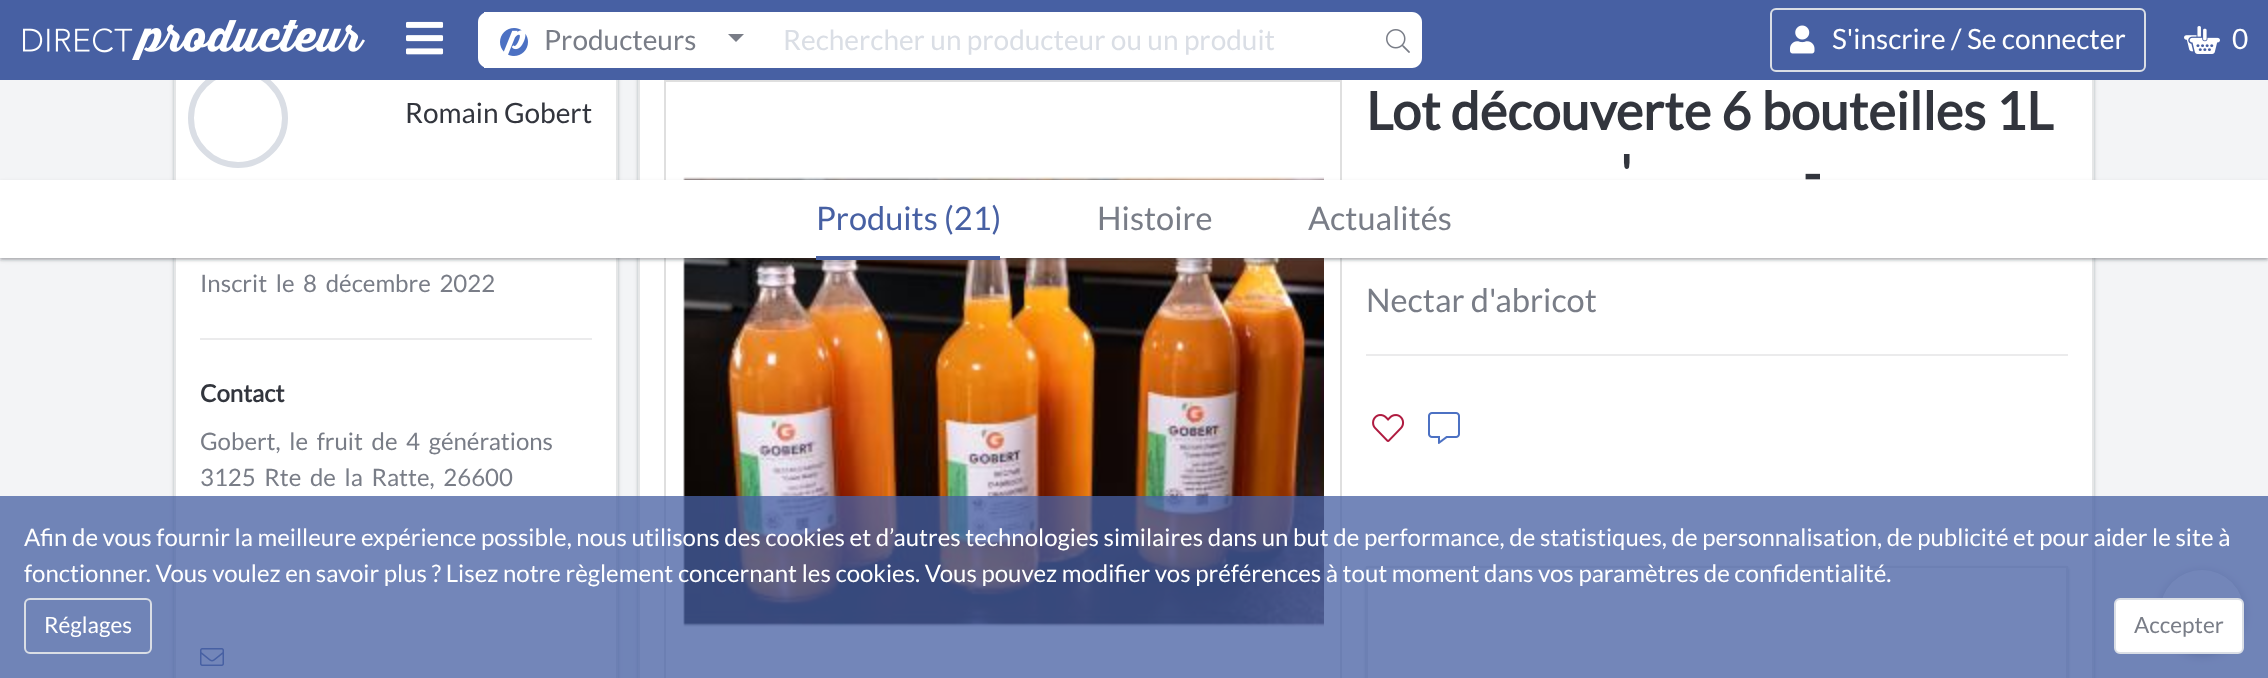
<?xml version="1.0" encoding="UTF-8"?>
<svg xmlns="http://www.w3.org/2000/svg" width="2268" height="678">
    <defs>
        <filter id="blur1" x="-50%" y="-200%" width="200%" height="500%"><feGaussianBlur stdDeviation="1"/></filter>
        <filter id="blur2" x="-50%" y="-200%" width="200%" height="500%"><feGaussianBlur stdDeviation="2"/></filter>
        <clipPath id="clip1"><path d="M 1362 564 H 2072 V 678 H 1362 Z M 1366 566 H 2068 V 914 H 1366 Z" clip-rule="evenodd"/></clipPath>
        <clipPath id="clip2"><path d="M 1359 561 H 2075 V 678 H 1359 Z M 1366 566 H 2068 V 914 H 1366 Z" clip-rule="evenodd"/></clipPath>
        <filter id="blur3" x="-50%" y="-200%" width="200%" height="500%"><feGaussianBlur stdDeviation="4"/></filter>
    </defs>
    <rect width="100%" height="100%" fill="#F3F4F6"/>
    <rect x="174" y="56" width="444" height="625" fill="#32353D" fill-opacity="0.24" filter="url(#blur1)"/>
    <rect x="174" y="56" width="444" height="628" fill="#32353D" fill-opacity="0.16" filter="url(#blur2)"/>
    <rect x="176" y="80" width="440" height="598" fill="#FFFFFF"/>
    <rect x="175" y="55" width="442" height="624" fill="none" stroke="#E5E6E7" stroke-width="2"/>
    <circle cx="238" cy="118" r="47" fill="none" stroke="#DADEE5" stroke-width="6"/>
    <rect x="638" y="56" width="1456" height="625" fill="#32353D" fill-opacity="0.24" filter="url(#blur1)"/>
    <rect x="638" y="56" width="1456" height="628" fill="#32353D" fill-opacity="0.16" filter="url(#blur2)"/>
    <rect x="640" y="80" width="1452" height="598" fill="#FFFFFF"/>
    <rect x="639" y="55" width="1454" height="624" fill="none" stroke="#E5E6E7" stroke-width="2"/>
    <rect x="0" y="0" width="2268" height="80" fill="#4760A3"/>
    <image x="23" y="20" width="342" height="40" href="img_01.png"/>
    <image x="406" y="21" width="38" height="34" href="img_02.png"/>
    <path d="M 488 12 H 764 V 68 H 488 C 482.5 68 478 63.5 478 58 V 22 C 478 16.5 482.5 12 488 12 Z" fill="#FFFFFF"/>
    <rect x="484" y="12" width="4" height="1" fill="#FFFFFF"/>
    <rect x="484" y="67" width="4" height="1" fill="#FFFFFF"/>
    <image x="500" y="28" width="28" height="28" href="img_03.png"/>
    <text x="544" y="50" font-family="Lato" font-size="28" fill="#797D87">Producteurs</text>
    <path d="M 728 34 H 744 L 736 42 Z" fill="#797D87"/>
    <rect x="764" y="12" width="610" height="56" fill="#FFFFFF"/>
    <text x="783" y="50" font-family="Lato" font-size="28" fill="#DADEE5">Rechercher un producteur ou un produit</text>
    <path d="M 1374 12 H 1412 C 1417.5 12 1422 16.5 1422 22 V 58 C 1422 63.5 1417.5 68 1412 68 H 1374 Z" fill="#FFFFFF"/>
    <image x="1386" y="29" width="24" height="24" href="img_04.png"/>
    <rect x="1771" y="9" width="374" height="62" rx="5" fill="none" stroke="#DADEE5" stroke-width="2"/>
    <image x="1790" y="25" width="25" height="29" href="img_05.png"/>
    <text x="1832" y="49" font-family="Lato" font-size="28" fill="#FFFFFF">S'inscrire / Se connecter</text>
    <image x="2184" y="26" width="36" height="28" href="img_06.png"/>
    <text x="2232" y="49" font-family="Lato" font-size="28" fill="#FFFFFF">0</text>
    <text x="405" y="123" font-family="Lato" font-size="28" fill="#32353D">Romain Gobert</text>
    <text x="200" y="292" word-spacing="4" font-family="Lato" font-size="24" fill="#797D87">Inscrit le 8 décembre 2022</text>
    <rect x="200" y="338" width="392" height="2" fill="#EBEBEC"/>
    <text x="200" y="402" font-family="Lato" font-size="24" font-weight="700" fill="#32353D">Contact</text>
    <text font-family="Lato" font-size="24" fill="#797D87">
        <tspan x="200" y="450" word-spacing="4">Gobert, le fruit de 4 générations</tspan>
        <tspan x="200" y="486" word-spacing="4">3125 Rte de la Ratte, 26600</tspan>
    </text>
    <image x="200" y="648" width="24" height="18" href="img_07.png"/>
    <rect x="665" y="81" width="676" height="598" fill="none" stroke="#DFDFDF" stroke-width="2"/>
    <image x="683" y="176" width="641" height="451" href="img_08.png"/>
    <text x="1366" y="130" font-family="Lato" font-size="52.25" font-weight="700" fill="#32353D">Lot découverte 6 bouteilles 1L</text>
    <text x="1620" y="193" font-family="Lato" font-size="52.25" font-weight="700" fill="#32353D">'</text>
    <text x="1803" y="193" font-family="Lato" font-size="52.25" font-weight="700" fill="#32353D">-</text>
    <text x="1366" y="312" font-family="Lato" font-size="32.5" fill="#797D87">Nectar d'abricot</text>
    <rect x="1366" y="354" width="702" height="2" fill="#EBEBEC"/>
    <image x="1372" y="414" width="33" height="28" href="img_09.png"/>
    <image x="1428" y="412" width="32" height="32" href="img_10.png"/>
    <g clip-path="url(#clip1)">
        <rect x="1366" y="568" width="702" height="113" fill="#32353D" fill-opacity="0.24" filter="url(#blur1)"/>
    </g>
    <g clip-path="url(#clip2)">
        <rect x="1366" y="568" width="702" height="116" fill="#32353D" fill-opacity="0.16" filter="url(#blur2)"/>
    </g>
    <rect x="1367" y="567" width="700" height="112" fill="none" stroke="#E5E6E7" stroke-width="2"/>
    <rect x="2160" y="572" width="84" height="84" rx="42" fill="#32353E" fill-opacity="0.36" filter="url(#blur3)"/>
    <circle cx="2202" cy="612" r="42" fill="#FFFFFF"/>
    <rect x="0" y="182" width="2268" height="78" fill="#32353D" fill-opacity="0.24" filter="url(#blur1)"/>
    <rect x="0" y="182" width="2268" height="78" fill="#32353D" fill-opacity="0.16" filter="url(#blur2)"/>
    <rect x="0" y="180" width="2268" height="78" fill="#FFFFFF"/>
    <rect x="816" y="256" width="184" height="4" fill="#4760A3"/>
    <text x="816" y="230" font-family="Lato" font-size="32.5" fill="#4760A3">Produits (21)</text>
    <text x="1097" y="230" font-family="Lato" font-size="32.5" fill="#797D87">Histoire</text>
    <text x="1308" y="230" font-family="Lato" font-size="32.5" fill="#797D87">Actualités</text>
    <rect x="0" y="496" width="2268" height="182" fill="#4760A3" fill-opacity="0.76"/>
    <text font-family="Lato" font-size="24" fill="#FFFFFF">
        <tspan x="24" y="546">Afin de vous fournir la meilleure expérience possible, nous utilisons des cookies et d’autres technologies similaires dans un but de performance, de statistiques, de personnalisation, de publicité et pour aider le site à</tspan>
        <tspan x="24" y="582">fonctionner. Vous voulez en savoir plus ? Lisez notre règlement concernant les cookies. Vous pouvez modifier vos préférences à tout moment dans vos paramètres de confidentialité.</tspan>
    </text>
    <rect x="25" y="599" width="126" height="54" rx="5" fill="none" stroke="#DADEE5" stroke-width="2"/>
    <text x="44" y="633" font-family="Lato" font-size="22.5" fill="#FFFFFF">Réglages</text>
    <rect x="2115" y="599" width="128" height="54" rx="5" fill="#FFFFFF" stroke="#DADEE5" stroke-width="2"/>
    <text x="2134" y="633" font-family="Lato" font-size="22.5" fill="#797D87">Accepter</text>
</svg>
